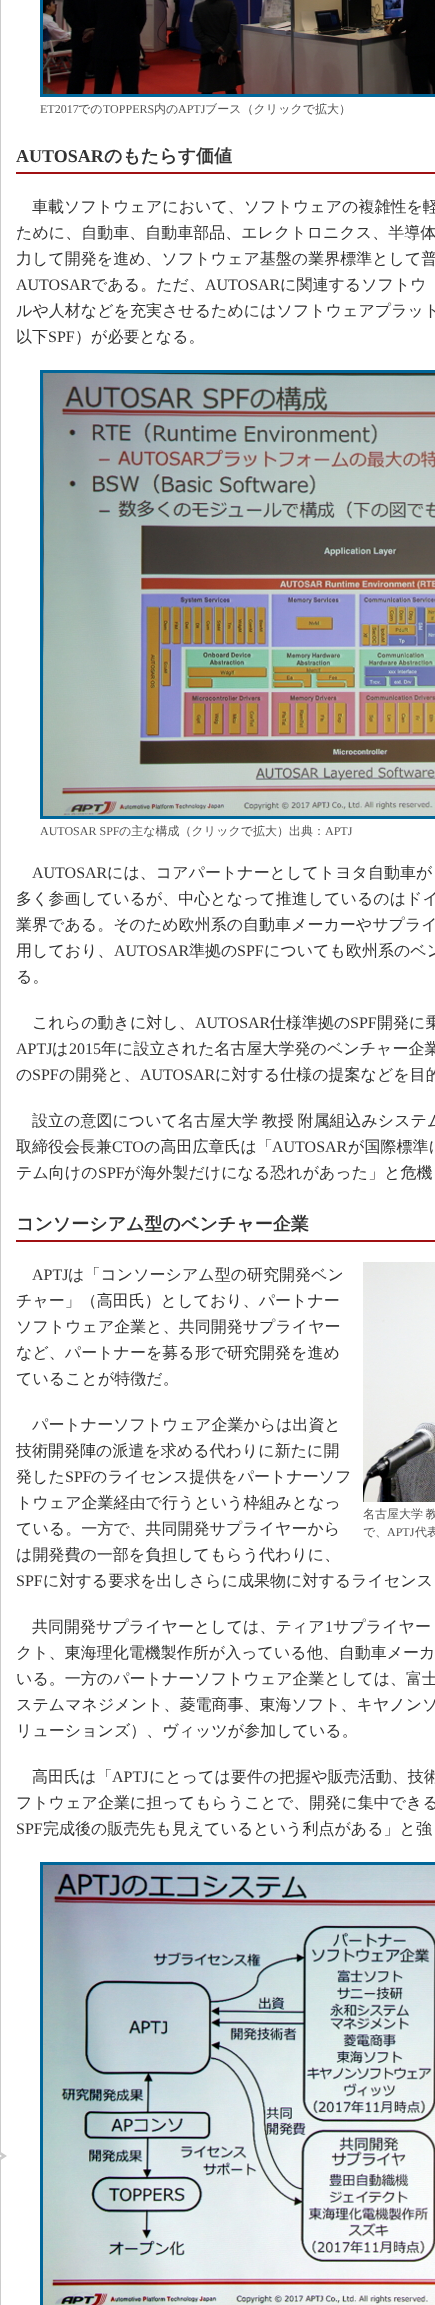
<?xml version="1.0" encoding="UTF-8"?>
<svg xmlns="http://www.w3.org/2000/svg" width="435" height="2305">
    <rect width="100%" height="100%" fill="#FFFFFF"/>
    <rect x="0.5" y="-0.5" width="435" height="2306" fill="none" stroke="#CCCCCC"/>
    <rect x="41.5" y="-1.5" width="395" height="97" fill="none" stroke="#006699" stroke-width="3"/>
    <image x="43" y="0" width="392" height="94" href="img_01.png"/>
    <text x="40" y="113" font-family="Liberation Serif" font-size="12" fill="#555555">ET2017</text>
    <text x="78" y="113" font-family="WenQuanYi Zen Hei" font-size="12" font-weight="500" fill="#555555">での</text>
    <text x="103" y="113" font-family="Liberation Serif" font-size="12" fill="#555555">TOPPERS</text>
    <text x="154" y="113" font-family="WenQuanYi Zen Hei" font-size="12" font-weight="500" fill="#555555">内の</text>
    <text x="178" y="113" font-family="Liberation Serif" font-size="12" fill="#555555">APTJ</text>
    <text x="205" y="113" font-family="WenQuanYi Zen Hei" font-size="12" font-weight="500" fill="#555555">ブース（クリックで拡大）</text>
    <rect x="16" y="172" width="419" height="2" fill="#A01013"/>
    <text x="16" y="162" font-family="Liberation Serif" font-size="18" font-weight="700" fill="#333333">AUTOSAR</text>
    <text x="104" y="162" font-family="WenQuanYi Zen Hei" font-size="18" font-weight="700" fill="#333333">のもたらす価値</text>
    <text x="32" y="212" font-family="WenQuanYi Zen Hei" font-size="16" font-weight="500" fill="#333333">車載ソフトウェアにおいて、ソフトウェアの複雑性を軽</text>
    <text font-family="WenQuanYi Zen Hei" font-size="16" font-weight="500" fill="#333333">
        <tspan x="16" y="238">ために、自動車、自動車部品、エレクトロニクス、半導体</tspan>
        <tspan x="16" y="264">力して開発を進め、ソフトウェア基盤の業界標準として普</tspan>
    </text>
    <text x="16" y="290" font-family="Liberation Serif" font-size="16" fill="#333333">AUTOSAR</text>
    <text x="91" y="290" font-family="WenQuanYi Zen Hei" font-size="16" font-weight="500" fill="#333333">である。ただ、</text>
    <text x="205" y="290" font-family="Liberation Serif" font-size="16" fill="#333333">AUTOSAR</text>
    <text x="280" y="290" font-family="WenQuanYi Zen Hei" font-size="16" font-weight="500" fill="#333333">に関連するソフトウ</text>
    <text font-family="WenQuanYi Zen Hei" font-size="16" font-weight="500" fill="#333333">
        <tspan x="16" y="316">ルや人材などを充実させるためにはソフトウェアプラット</tspan>
        <tspan x="16" y="342">以下</tspan>
    </text>
    <text x="48" y="342" font-family="Liberation Serif" font-size="16" fill="#333333">SPF</text>
    <text x="75" y="342" font-family="WenQuanYi Zen Hei" font-size="16" font-weight="500" fill="#333333">）が必要となる。</text>
    <rect x="41.5" y="371.5" width="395" height="446" fill="none" stroke="#006699" stroke-width="3"/>
    <image x="43" y="373" width="392" height="443" href="img_02.png"/>
    <text x="40" y="835" font-family="Liberation Serif" font-size="12" fill="#555555">AUTOSAR SPF</text>
    <text x="119" y="835" font-family="WenQuanYi Zen Hei" font-size="12" font-weight="500" fill="#555555">の主な構成（クリックで拡大）出典：</text>
    <text x="325" y="835" font-family="Liberation Serif" font-size="12" fill="#555555">APTJ</text>
    <text x="32" y="878" font-family="Liberation Serif" font-size="16" fill="#333333">AUTOSAR</text>
    <text x="107" y="878" font-family="WenQuanYi Zen Hei" font-size="16" font-weight="500" fill="#333333">には、コアパートナーとしてトヨタ自動車が</text>
    <text font-family="WenQuanYi Zen Hei" font-size="16" font-weight="500" fill="#333333">
        <tspan x="16" y="904">多く参画しているが、中心となって推進しているのはドイ</tspan>
        <tspan x="16" y="930">業界である。そのため欧州系の自動車メーカーやサプライ</tspan>
        <tspan x="16" y="956">用しており、</tspan>
    </text>
    <text x="114" y="956" font-family="Liberation Serif" font-size="16" fill="#333333">AUTOSAR</text>
    <text x="189" y="956" font-family="WenQuanYi Zen Hei" font-size="16" font-weight="500" fill="#333333">準拠の</text>
    <text x="237" y="956" font-family="Liberation Serif" font-size="16" fill="#333333">SPF</text>
    <text x="264" y="956" font-family="WenQuanYi Zen Hei" font-size="16" font-weight="500" fill="#333333">についても欧州系のベン</text>
    <text x="16" y="982" font-family="WenQuanYi Zen Hei" font-size="16" font-weight="500" fill="#333333">る。</text>
    <text x="32" y="1028" font-family="WenQuanYi Zen Hei" font-size="16" font-weight="500" fill="#333333">これらの動きに対し、</text>
    <text x="195" y="1028" font-family="Liberation Serif" font-size="16" fill="#333333">AUTOSAR</text>
    <text x="270" y="1028" font-family="WenQuanYi Zen Hei" font-size="16" font-weight="500" fill="#333333">仕様準拠の</text>
    <text x="350" y="1028" font-family="Liberation Serif" font-size="16" fill="#333333">SPF</text>
    <text x="377" y="1028" font-family="WenQuanYi Zen Hei" font-size="16" font-weight="500" fill="#333333">開発に乗</text>
    <text x="16" y="1054" font-family="Liberation Serif" font-size="16" fill="#333333">APTJ</text>
    <text x="52" y="1054" font-family="WenQuanYi Zen Hei" font-size="16" font-weight="500" fill="#333333">は</text>
    <text x="69" y="1054" font-family="Liberation Serif" font-size="16" fill="#333333">2015</text>
    <text x="101" y="1054" font-family="WenQuanYi Zen Hei" font-size="16" font-weight="500" fill="#333333">年に設立された名古屋大学発のベンチャー企業</text>
    <text x="16" y="1080" font-family="WenQuanYi Zen Hei" font-size="16" font-weight="500" fill="#333333">の</text>
    <text x="32" y="1080" font-family="Liberation Serif" font-size="16" fill="#333333">SPF</text>
    <text x="59" y="1080" font-family="WenQuanYi Zen Hei" font-size="16" font-weight="500" fill="#333333">の開発と、</text>
    <text x="140" y="1080" font-family="Liberation Serif" font-size="16" fill="#333333">AUTOSAR</text>
    <text x="215" y="1080" font-family="WenQuanYi Zen Hei" font-size="16" font-weight="500" fill="#333333">に対する仕様の提案などを目的</text>
    <text x="32" y="1126" word-spacing="-1" font-family="WenQuanYi Zen Hei" font-size="16" font-weight="500" fill="#333333">設立の意図について名古屋大学 教授 附属組込みシステム</text>
    <text x="16" y="1152" font-family="WenQuanYi Zen Hei" font-size="16" font-weight="500" fill="#333333">取締役会長兼</text>
    <text x="112" y="1152" font-family="Liberation Serif" font-size="16" fill="#333333">CTO</text>
    <text x="144" y="1152" font-family="WenQuanYi Zen Hei" font-size="16" font-weight="500" fill="#333333">の高田広章氏は「</text>
    <text x="272" y="1152" font-family="Liberation Serif" font-size="16" fill="#333333">AUTOSAR</text>
    <text x="348" y="1152" font-family="WenQuanYi Zen Hei" font-size="16" font-weight="500" fill="#333333">が国際標準に</text>
    <text x="16" y="1178" font-family="WenQuanYi Zen Hei" font-size="16" font-weight="500" fill="#333333">テム向けの</text>
    <text x="98" y="1178" font-family="Liberation Serif" font-size="16" fill="#333333">SPF</text>
    <text x="124" y="1178" font-family="WenQuanYi Zen Hei" font-size="16" font-weight="500" fill="#333333">が海外製だけになる恐れがあった」と危機</text>
    <rect x="16" y="1240" width="419" height="2" fill="#A01013"/>
    <text x="16" y="1230" font-family="WenQuanYi Zen Hei" font-size="18" font-weight="700" fill="#333333">コンソーシアム型のベンチャー企業</text>
    <text x="32" y="1280" font-family="Liberation Serif" font-size="16" fill="#333333">APTJ</text>
    <text x="68" y="1280" font-family="WenQuanYi Zen Hei" font-size="16" font-weight="500" fill="#333333">は「コンソーシアム型の研究開発ベン</text>
    <text font-family="WenQuanYi Zen Hei" font-size="16" font-weight="500" fill="#333333">
        <tspan x="16" y="1306">チャー」（高田氏）としており、パートナー</tspan>
        <tspan x="16" y="1332">ソフトウェア企業と、共同開発サプライヤー</tspan>
        <tspan x="16" y="1358">など、パートナーを募る形で研究開発を進め</tspan>
        <tspan x="16" y="1384">ていることが特徴だ。</tspan>
    </text>
    <text x="32" y="1430" font-family="WenQuanYi Zen Hei" font-size="16" font-weight="500" fill="#333333">パートナーソフトウェア企業からは出資と</text>
    <text font-family="WenQuanYi Zen Hei" font-size="16" font-weight="500" fill="#333333">
        <tspan x="16" y="1456">技術開発陣の派遣を求める代わりに新たに開</tspan>
        <tspan x="16" y="1482">発した</tspan>
    </text>
    <text x="65" y="1482" font-family="Liberation Serif" font-size="16" fill="#333333">SPF</text>
    <text x="91" y="1482" font-family="WenQuanYi Zen Hei" font-size="16" font-weight="500" fill="#333333">のライセンス提供をパートナーソフ</text>
    <text font-family="WenQuanYi Zen Hei" font-size="16" font-weight="500" fill="#333333">
        <tspan x="16" y="1508">トウェア企業経由で行うという枠組みとなっ</tspan>
        <tspan x="16" y="1534">ている。一方で、共同開発サプライヤーから</tspan>
        <tspan x="16" y="1560">は開発費の一部を負担してもらう代わりに、</tspan>
    </text>
    <text x="16" y="1586" font-family="Liberation Serif" font-size="16" fill="#333333">SPF</text>
    <text x="43" y="1586" font-family="WenQuanYi Zen Hei" font-size="16" font-weight="500" fill="#333333">に対する要求を出しさらに成果物に対するライセンス</text>
    <image x="363" y="1262" width="72" height="240" href="img_03.png"/>
    <text font-family="WenQuanYi Zen Hei" font-size="12" font-weight="500" fill="#555555">
        <tspan x="363" y="1518" word-spacing="-1">名古屋大学 教</tspan>
        <tspan x="363" y="1536">で、</tspan>
    </text>
    <text x="387" y="1536" font-family="Liberation Serif" font-size="12" fill="#555555">APTJ</text>
    <text x="415" y="1536" font-family="WenQuanYi Zen Hei" font-size="12" font-weight="500" fill="#555555">代表</text>
    <text x="32" y="1632" font-family="WenQuanYi Zen Hei" font-size="16" font-weight="500" fill="#333333">共同開発サプライヤーとしては、ティア</text>
    <text x="325" y="1632" font-family="Liberation Serif" font-size="16" fill="#333333">1</text>
    <text x="333" y="1632" font-family="WenQuanYi Zen Hei" font-size="16" font-weight="500" fill="#333333">サプライヤー</text>
    <text font-family="WenQuanYi Zen Hei" font-size="16" font-weight="500" fill="#333333">
        <tspan x="16" y="1658">クト、東海理化電機製作所が入っている他、自動車メーカ</tspan>
        <tspan x="16" y="1684">いる。一方のパートナーソフトウェア企業としては、富士</tspan>
        <tspan x="16" y="1710">ステムマネジメント、菱電商事、東海ソフト、キヤノンソ</tspan>
        <tspan x="16" y="1736">リューションズ）、ヴィッツが参加している。</tspan>
    </text>
    <text x="32" y="1782" font-family="WenQuanYi Zen Hei" font-size="16" font-weight="500" fill="#333333">高田氏は「</text>
    <text x="112" y="1782" font-family="Liberation Serif" font-size="16" fill="#333333">APTJ</text>
    <text x="149" y="1782" font-family="WenQuanYi Zen Hei" font-size="16" font-weight="500" fill="#333333">にとっては要件の把握や販売活動、技術</text>
    <text x="16" y="1808" font-family="WenQuanYi Zen Hei" font-size="16" font-weight="500" fill="#333333">フトウェア企業に担ってもらうことで、開発に集中できる</text>
    <text x="16" y="1834" font-family="Liberation Serif" font-size="16" fill="#333333">SPF</text>
    <text x="43" y="1834" font-family="WenQuanYi Zen Hei" font-size="16" font-weight="500" fill="#333333">完成後の販売先も見えているという利点がある」と強</text>
    <rect x="41.5" y="1863.5" width="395" height="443" fill="none" stroke="#006699" stroke-width="3"/>
    <image x="43" y="1865" width="392" height="440" href="img_04.png"/>
    <path d="M -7 2165 V 2147 L 7 2156 Z" fill="#CBCBCB"/>
    <path d="M -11 2164 V 2148 L 2 2156 Z" fill="#FFFFFF"/>
</svg>
